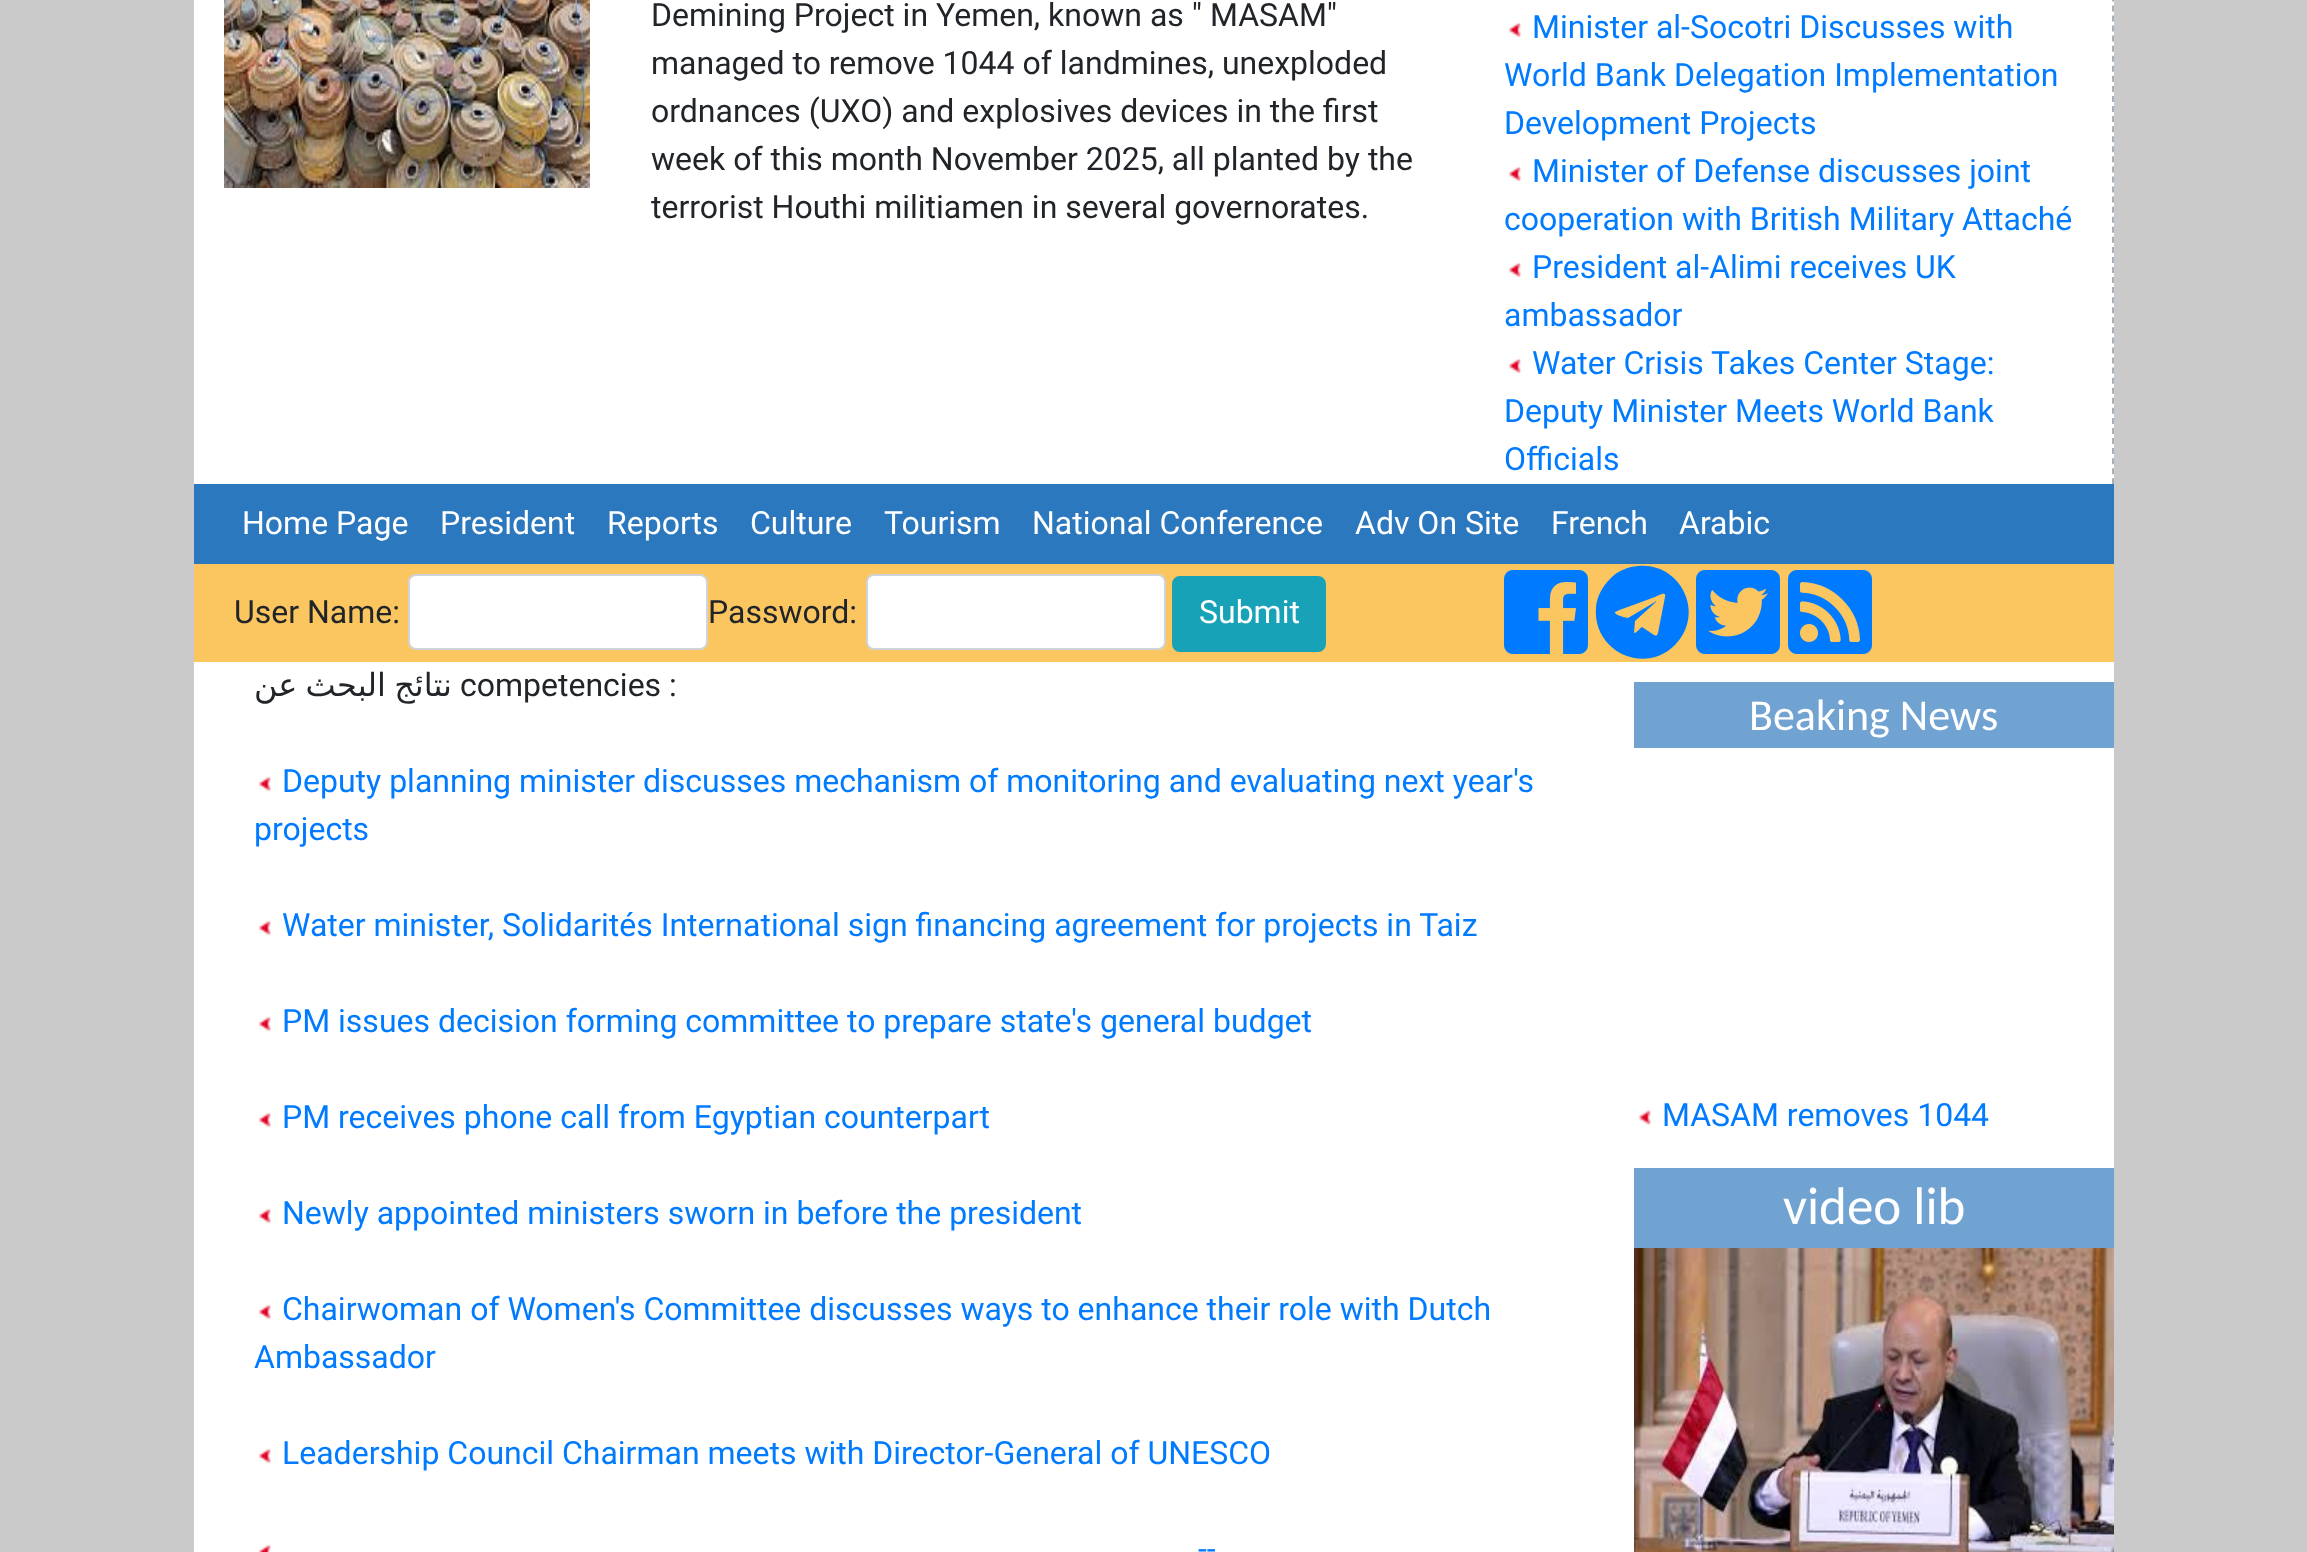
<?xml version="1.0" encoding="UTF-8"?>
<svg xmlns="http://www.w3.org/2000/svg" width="2307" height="1552">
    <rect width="100%" height="100%" fill="#CACACA"/>
    <rect x="194" y="0" width="1920" height="1552" fill="#FFFFFF"/>
    <image x="224" y="0" width="366" height="188" href="img_01.png"/>
    <text font-family="Roboto" font-size="32" fill="#212529">
        <tspan x="651" y="26">Demining Project in Yemen, known as " MASAM"</tspan>
        <tspan x="651" y="74">managed to remove 1044 of landmines, unexploded</tspan>
        <tspan x="651" y="122">ordnances (UXO) and explosives devices in the first</tspan>
        <tspan x="651" y="170">week of this month November 2025, all planted by the</tspan>
        <tspan x="651" y="218">terrorist Houthi militiamen in several governorates.</tspan>
    </text>
    <path d="M 2113 -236 V 484" fill="none" stroke="#A6B0BA" stroke-width="2" stroke-dasharray="6 4.06"/>
    <image x="1508" y="22" width="13" height="16" href="img_02.png"/>
    <text x="1532" y="38" font-family="Roboto" font-size="32" fill="#007BFF">Minister al-Socotri Discusses with</text>
    <text font-family="Roboto" font-size="32" fill="#007BFF">
        <tspan x="1504" y="86">World Bank Delegation Implementation</tspan>
        <tspan x="1504" y="134">Development Projects</tspan>
    </text>
    <image x="1508" y="166" width="13" height="16" href="img_02.png"/>
    <text x="1532" y="182" font-family="Roboto" font-size="32" fill="#007BFF">Minister of Defense discusses joint</text>
    <text x="1504" y="230" font-family="Roboto" font-size="32" fill="#007BFF">cooperation with British Military Attaché</text>
    <image x="1508" y="262" width="13" height="16" href="img_02.png"/>
    <text x="1532" y="278" font-family="Roboto" font-size="32" fill="#007BFF">President al-Alimi receives UK</text>
    <text x="1504" y="326" font-family="Roboto" font-size="32" fill="#007BFF">ambassador</text>
    <image x="1508" y="358" width="13" height="16" href="img_02.png"/>
    <text x="1532" y="374" font-family="Roboto" font-size="32" fill="#007BFF">Water Crisis Takes Center Stage:</text>
    <text font-family="Roboto" font-size="32" fill="#007BFF">
        <tspan x="1504" y="422">Deputy Minister Meets World Bank</tspan>
        <tspan x="1504" y="470">Officials</tspan>
    </text>
    <rect x="194" y="484" width="1920" height="80" fill="#2B78BF"/>
    <text x="242" y="534" font-family="Roboto" font-size="32" fill="#FFFFFF">Home Page</text>
    <text x="440" y="534" font-family="Roboto" font-size="32" fill="#FFFFFF">President</text>
    <text x="607" y="534" font-family="Roboto" font-size="32" fill="#FFFFFF">Reports</text>
    <text x="750" y="534" font-family="Roboto" font-size="32" fill="#FFFFFF">Culture</text>
    <text x="884" y="534" font-family="Roboto" font-size="32" fill="#FFFFFF">Tourism</text>
    <text x="1032" y="534" font-family="Roboto" font-size="32" fill="#FFFFFF">National Conference</text>
    <text x="1355" y="534" font-family="Roboto" font-size="32" fill="#FFFFFF">Adv On Site</text>
    <text x="1551" y="534" font-family="Roboto" font-size="32" fill="#FFFFFF">French</text>
    <text x="1679" y="534" font-family="Roboto" font-size="32" fill="#FFFFFF">Arabic</text>
    <rect x="194" y="564" width="1920" height="98" fill="#FBC660"/>
    <text x="234" y="623" font-family="Roboto" font-size="32" fill="#212529">User Name:</text>
    <rect x="409" y="575" width="298" height="74" rx="7" fill="#FFFFFF" stroke="#CED4DA" stroke-width="2"/>
    <text x="708" y="623" font-family="Roboto" font-size="32" fill="#212529">Password:</text>
    <rect x="867" y="575" width="298" height="74" rx="7" fill="#FFFFFF" stroke="#CED4DA" stroke-width="2"/>
    <rect x="1173" y="577" width="152" height="74" rx="7" fill="#17A2B8" stroke="#17A2B8" stroke-width="2"/>
    <text x="1199" y="623" font-family="Roboto" font-size="32" fill="#FFFFFF">Submit</text>
    <image x="1504" y="570" width="84" height="84" href="img_03.png"/>
    <path d="M 1610 579 C 1617 571 1627 567 1638 566 C 1681 562 1706 614 1675 645 C 1644 676 1592 651 1596 607 C 1597 597 1602 587 1610 579 Z M 1665 597 C 1667 590 1657 596 1655 597 L 1625 608 C 1619 610 1614 612 1615 613 C 1616 615 1626 618 1628 618 L 1655 602 C 1655 601 1657 601 1656 602 L 1635 621 L 1634 633 C 1637 633 1640 628 1642 627 L 1654 635 C 1656 636 1657 636 1658 633 Z" fill="#007BFF"/>
    <image x="1696" y="570" width="84" height="84" href="img_04.png"/>
    <image x="1788" y="570" width="84" height="84" href="img_05.png"/>
    <text x="452" y="696" word-spacing="-2" font-family="DejaVu Sans" font-size="32" direction="rtl" fill="#212529">نتائج البحث عن</text>
    <text x="460" y="696" font-family="Roboto" font-size="32" fill="#212529">competencies :</text>
    <image x="258" y="776" width="13" height="16" href="img_02.png"/>
    <text x="282" y="792" font-family="Roboto" font-size="32" fill="#007BFF">Deputy planning minister discusses mechanism of monitoring and evaluating next year's</text>
    <text x="254" y="840" font-family="Roboto" font-size="32" fill="#007BFF">projects</text>
    <image x="258" y="920" width="13" height="16" href="img_02.png"/>
    <text x="282" y="936" font-family="Roboto" font-size="32" fill="#007BFF">Water minister, Solidarités International sign financing agreement for projects in Taiz</text>
    <image x="258" y="1016" width="13" height="16" href="img_02.png"/>
    <text x="282" y="1032" font-family="Roboto" font-size="32" fill="#007BFF">PM issues decision forming committee to prepare state's general budget</text>
    <image x="258" y="1112" width="13" height="16" href="img_02.png"/>
    <text x="282" y="1128" font-family="Roboto" font-size="32" fill="#007BFF">PM receives phone call from Egyptian counterpart</text>
    <image x="258" y="1208" width="13" height="16" href="img_02.png"/>
    <text x="282" y="1224" font-family="Roboto" font-size="32" fill="#007BFF">Newly appointed ministers sworn in before the president</text>
    <image x="258" y="1304" width="13" height="16" href="img_02.png"/>
    <text x="282" y="1320" font-family="Roboto" font-size="32" fill="#007BFF">Chairwoman of Women's Committee discusses ways to enhance their role with Dutch</text>
    <text x="254" y="1368" font-family="Roboto" font-size="32" fill="#007BFF">Ambassador</text>
    <image x="258" y="1448" width="13" height="16" href="img_02.png"/>
    <text x="282" y="1464" font-family="Roboto" font-size="32" fill="#007BFF">Leadership Council Chairman meets with Director-General of UNESCO</text>
    <image x="258" y="1544" width="13" height="8" href="img_06.png"/>
    <text x="1198" y="1560" font-family="Roboto" font-size="32" fill="#007BFF">--</text>
    <rect x="1634" y="682" width="480" height="66" fill="#70A3D2"/>
    <text x="1749" y="730" font-family="Carlito" font-size="44" fill="#FFFFFF">Beaking News</text>
    <image x="1638" y="1109" width="13" height="17" href="img_07.png"/>
    <text x="1662" y="1126" font-family="Roboto" font-size="32" fill="#007BFF">MASAM removes 1044</text>
    <rect x="1634" y="1168" width="480" height="80" fill="#70A3D2"/>
    <text x="1783" y="1224" font-family="Carlito" font-size="53" fill="#FFFFFF">video lib</text>
    <image x="1634" y="1248" width="480" height="304" href="img_08.png"/>
</svg>
